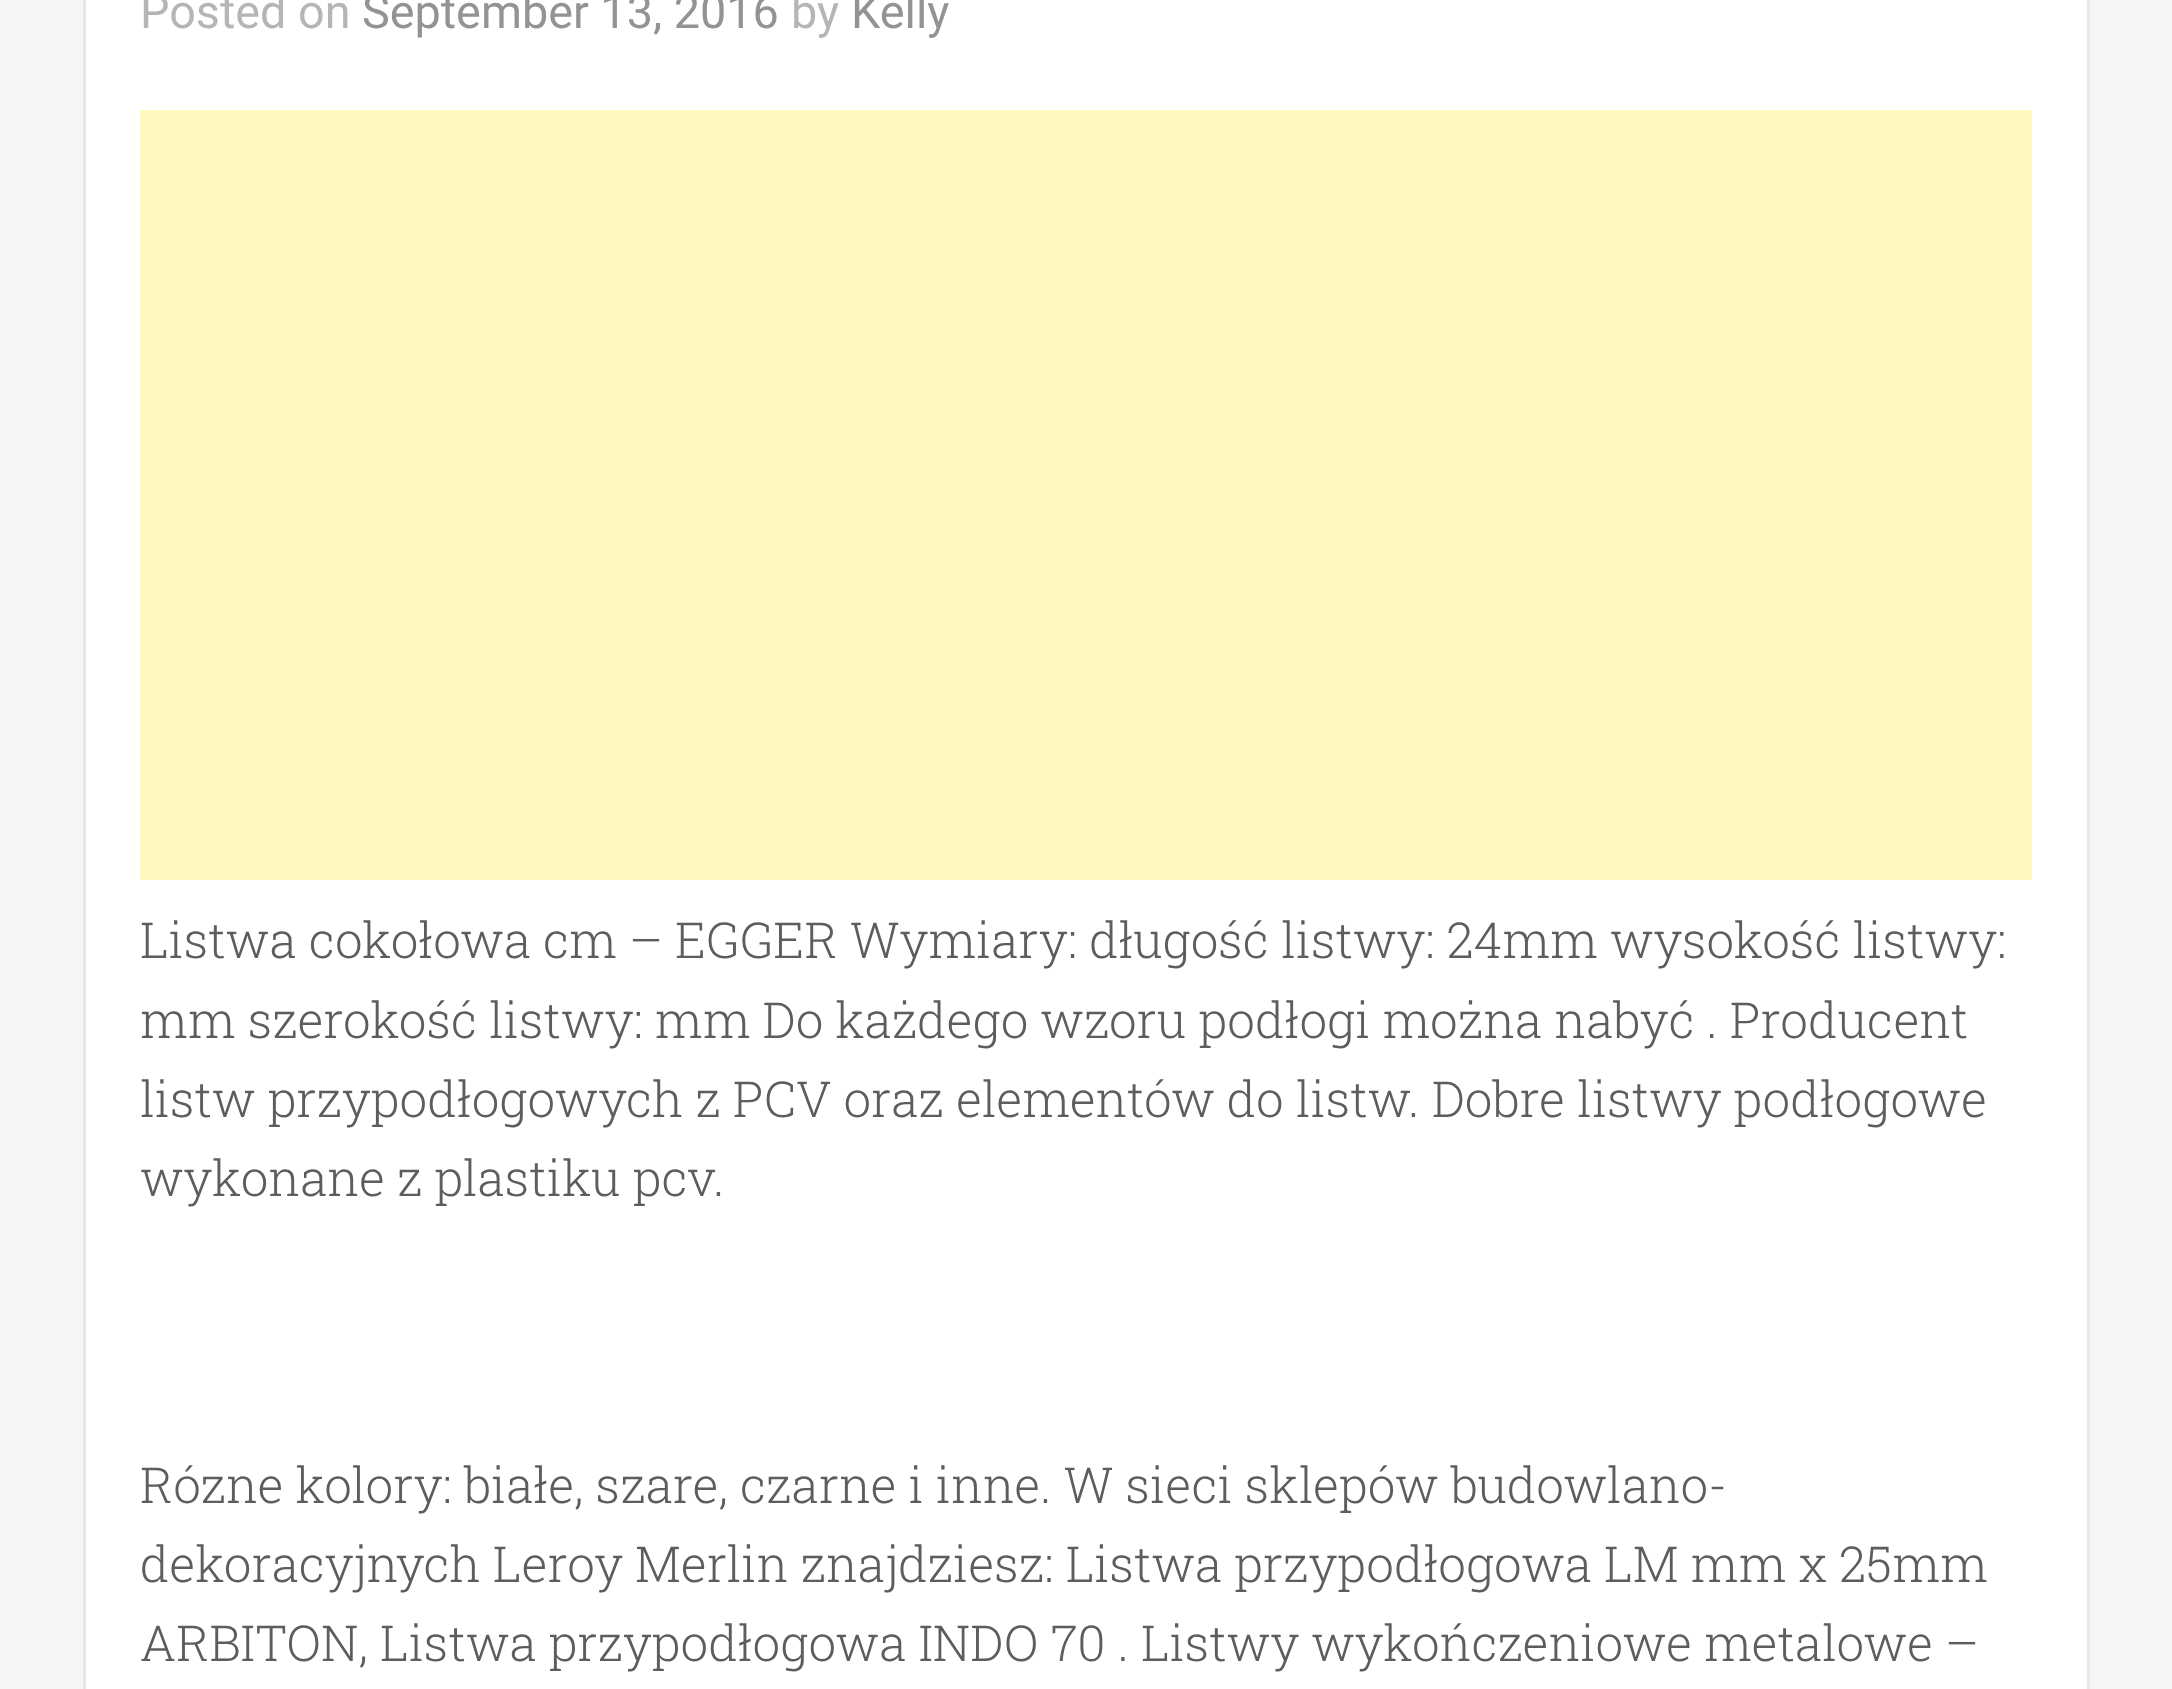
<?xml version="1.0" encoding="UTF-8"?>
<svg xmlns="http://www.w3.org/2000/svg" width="2172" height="1689">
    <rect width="100%" height="100%" fill="#F5F5F5"/>
    <rect x="84.5" y="-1.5" width="2004" height="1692" fill="#FFFFFF" stroke="#E8E8E8" stroke-width="3"/>
    <text x="140" y="28" font-family="Roboto" font-size="46.75" fill="#B5B5B5">Posted on</text>
    <text x="362" y="28" font-family="Roboto" font-size="46.75" fill="#939393">September 13, 2016</text>
    <text x="791" y="28" font-family="Roboto" font-size="46.75" fill="#B5B5B5">by</text>
    <text x="851" y="28" font-family="Roboto" font-size="46.75" fill="#939393">Kelly</text>
    <rect x="140" y="110" width="1892" height="770" fill="#FFF9C0"/>
    <text font-family="Roboto Slab" font-size="49.5" font-weight="300" fill="#5D5D5D">
        <tspan x="140" y="958">Listwa cokołowa cm – EGGER Wymiary: długość listwy: 24mm wysokość listwy:</tspan>
        <tspan x="140" y="1038">mm szerokość listwy: mm Do każdego wzoru podłogi można nabyć . Producent</tspan>
        <tspan x="140" y="1117">listw przypodłogowych z PCV oraz elementów do listw. Dobre listwy podłogowe</tspan>
        <tspan x="140" y="1196">wykonane z plastiku pcv.</tspan>
    </text>
    <text font-family="Roboto Slab" font-size="49.5" font-weight="300" fill="#5D5D5D">
        <tspan x="140" y="1503">Rózne kolory: białe, szare, czarne i inne. W sieci sklepów budowlano-</tspan>
        <tspan x="140" y="1582">dekoracyjnych Leroy Merlin znajdziesz: Listwa przypodłogowa LM mm x 25mm</tspan>
        <tspan x="140" y="1661">ARBITON, Listwa przypodłogowa INDO 70 . Listwy wykończeniowe metalowe –</tspan>
    </text>
</svg>
